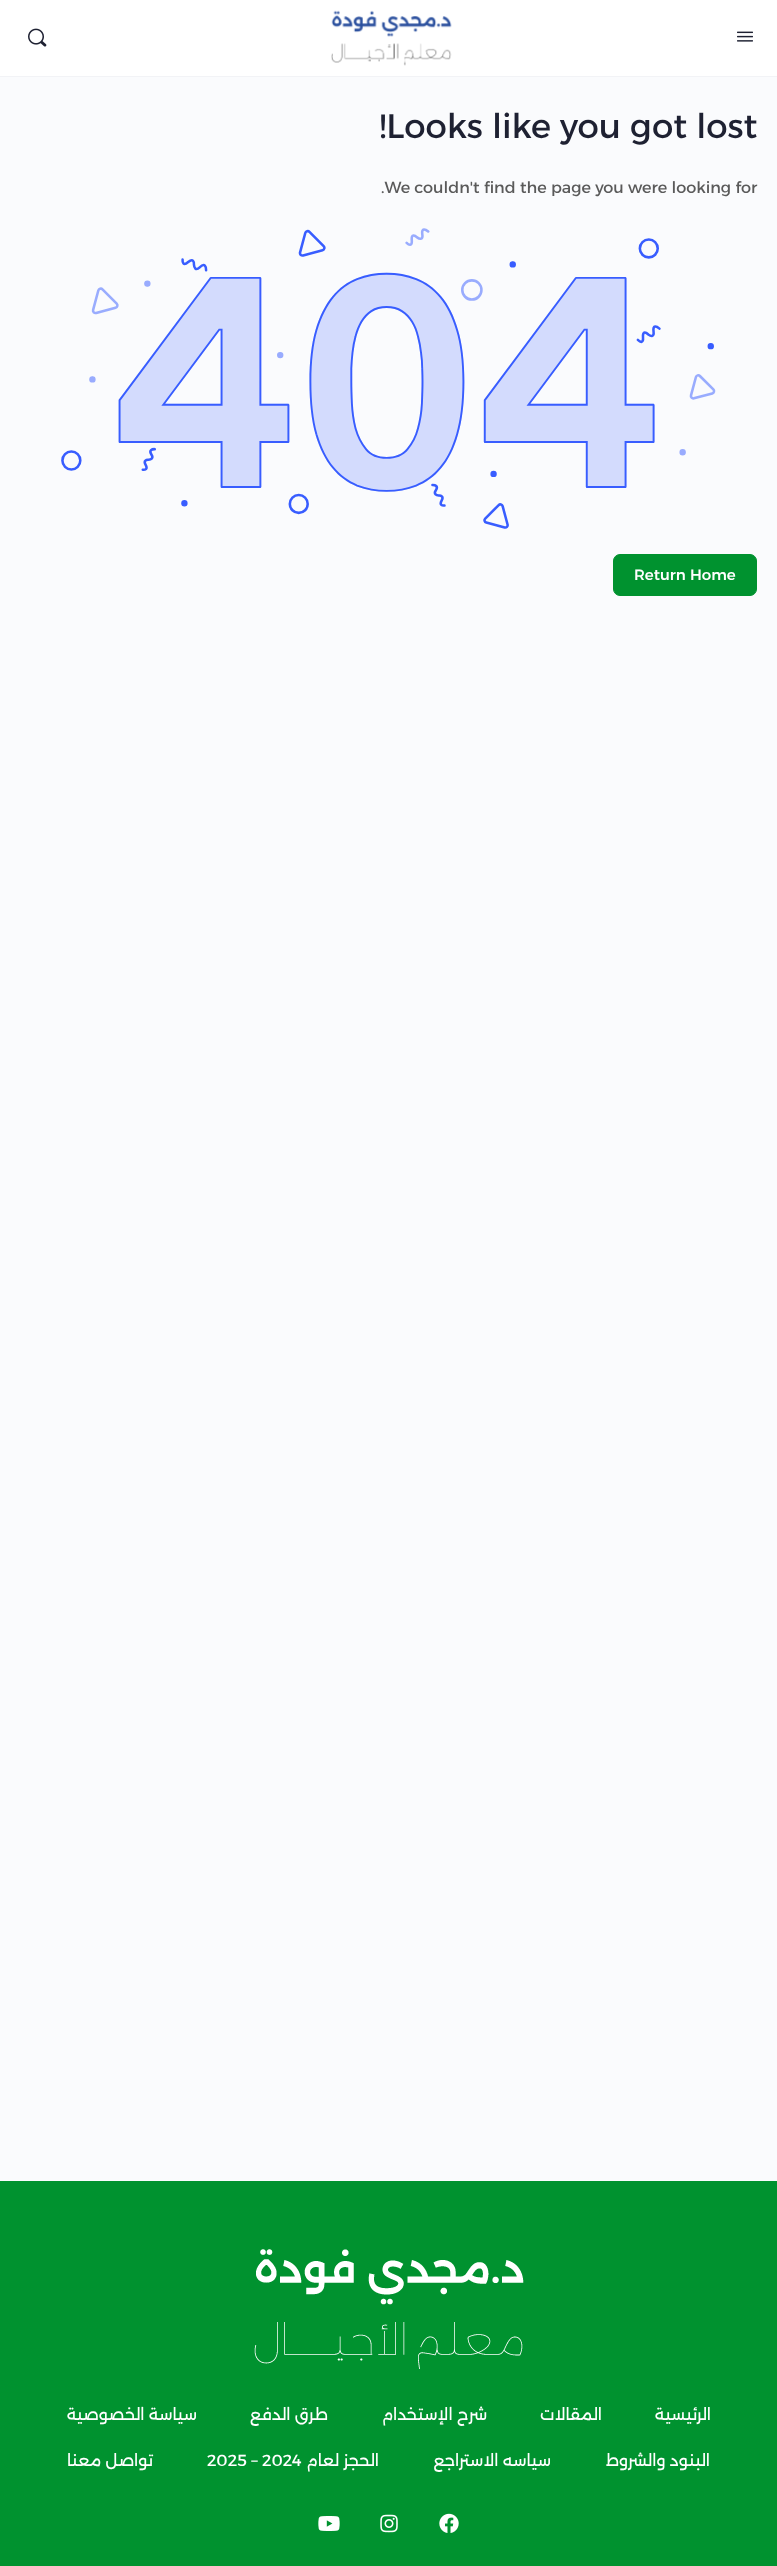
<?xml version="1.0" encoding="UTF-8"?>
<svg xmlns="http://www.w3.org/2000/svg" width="777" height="2566">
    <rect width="100%" height="100%" fill="#FAFBFD"/>
    <rect x="0" y="76" width="777" height="1" fill="#F2F3F6"/>
    <rect x="0" y="0" width="777" height="76" fill="#FFFFFF"/>
    <image x="737" y="31" width="16" height="11" href="img_01.png"/>
    <image x="331" y="10" width="121" height="56" href="img_02.png"/>
    <image x="28" y="28" width="19" height="19" href="img_03.png"/>
    <text x="379" y="138" font-family="Alexandria" font-size="34" fill="#1E2132">!Looks like you got lost</text>
    <text x="381" y="193" font-family="Alexandria" font-size="16" fill="#5A5A5A">.We couldn't find the page you were looking for</text>
    <image x="61" y="228" width="655" height="301" href="img_04.png"/>
    <rect x="613.5" y="554.5" width="143" height="41" rx="6.5" fill="#00922F" stroke="#00922F"/>
    <text x="634" y="580" font-family="Alexandria" font-size="15" font-weight="500" fill="#FFFFFF">Return Home</text>
    <rect x="0" y="2181" width="777" height="385" fill="#00922F"/>
    <image x="254" y="2249" width="270" height="120" href="img_05.png"/>
    <text x="711" y="2420" font-family="Alexandria" font-size="16" direction="rtl" fill="#FFFFFF">الرئيسية</text>
    <text x="602" y="2420" font-family="Alexandria" font-size="16" direction="rtl" fill="#FFFFFF">المقالات</text>
    <text x="487" y="2420" font-family="Alexandria" font-size="16" direction="rtl" fill="#FFFFFF">شرح الإستخدام</text>
    <text x="328" y="2420" font-family="Alexandria" font-size="16" direction="rtl" fill="#FFFFFF">طرق الدفع</text>
    <text x="197" y="2420" font-family="Alexandria" font-size="16" direction="rtl" fill="#FFFFFF">سياسة الخصوصية</text>
    <text x="710" y="2466" font-family="Alexandria" font-size="16" direction="rtl" fill="#FFFFFF">البنود والشروط</text>
    <text x="551" y="2466" font-family="Alexandria" font-size="16" direction="rtl" fill="#FFFFFF">سياسه الاستراجع</text>
    <text x="379" y="2466" font-family="Alexandria" font-size="16" direction="rtl" fill="#FFFFFF">الحجز لعام</text>
    <text x="207" y="2466" font-family="Alexandria" font-size="16" fill="#FFFFFF">2025 – 2024</text>
    <text x="153" y="2466" font-family="Alexandria" font-size="16" direction="rtl" fill="#FFFFFF">تواصل معنا</text>
    <image x="439" y="2513" width="20" height="20" href="img_06.png"/>
    <image x="380" y="2514" width="18" height="19" href="img_07.png"/>
    <image x="318" y="2516" width="22" height="15" href="img_08.png"/>
</svg>
